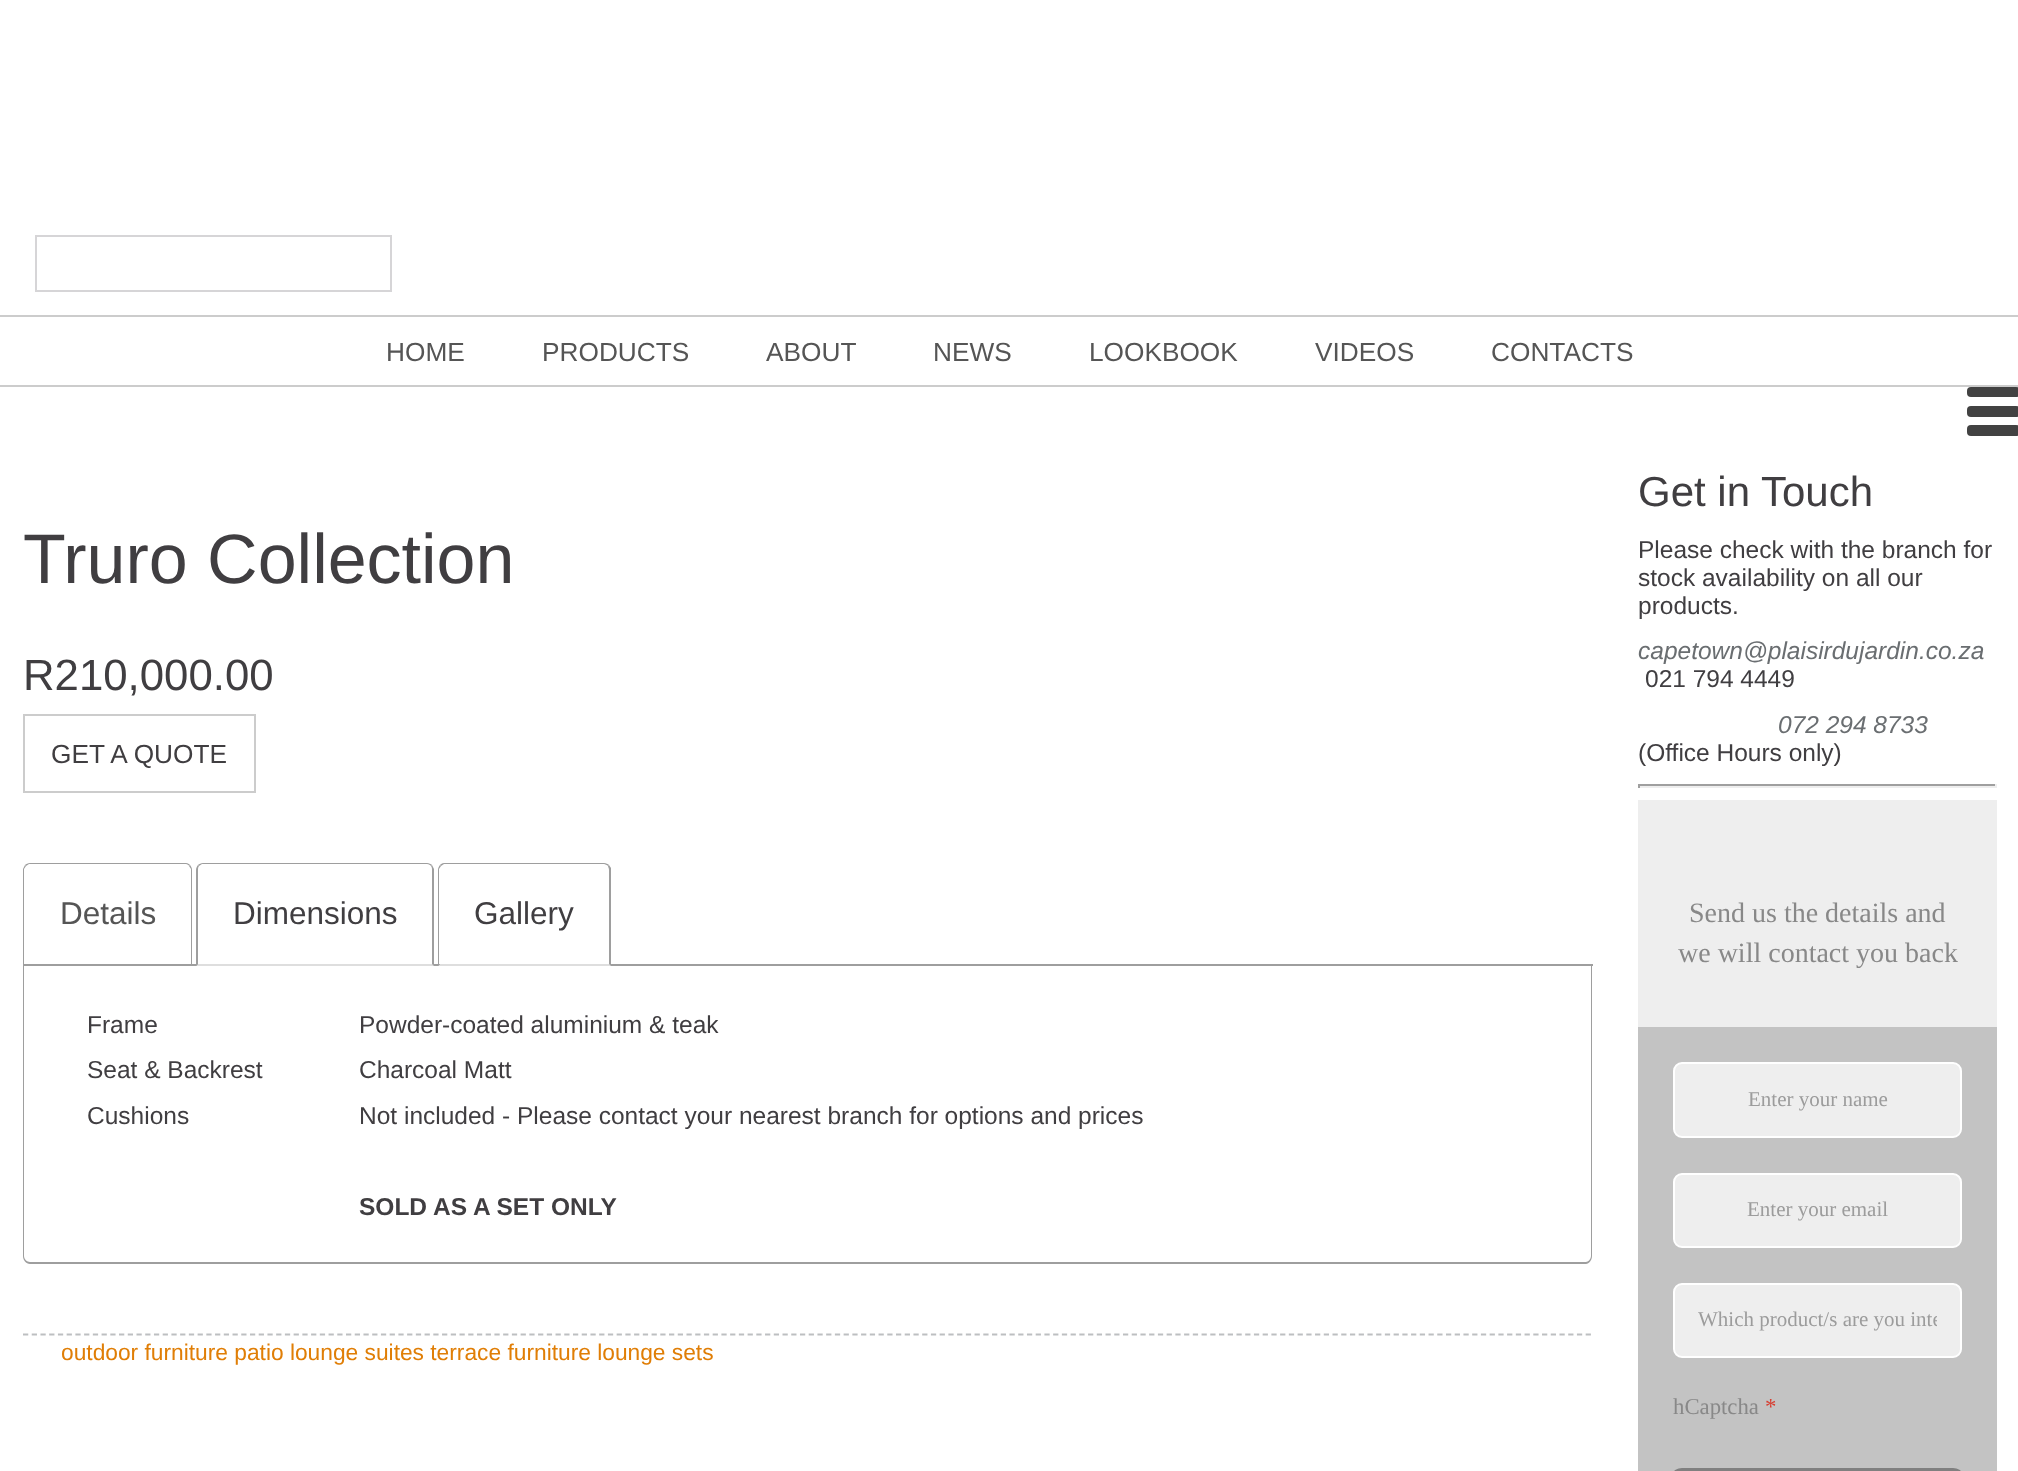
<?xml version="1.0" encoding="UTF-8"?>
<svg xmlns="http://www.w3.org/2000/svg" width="2018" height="1471">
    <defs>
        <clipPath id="clip1"><rect x="1698" y="1307" width="239" height="27"/></clipPath>
    </defs>
    <rect width="100%" height="100%" fill="#FFFFFF"/>
    <rect x="36" y="236" width="355" height="55" fill="none" stroke="#D6D5D7" stroke-width="2"/>
    <rect x="0" y="315" width="2018" height="2" fill="#CCCCCC"/>
    <rect x="0" y="385" width="2018" height="2" fill="#CCCCCC"/>
    <text x="386" y="361" font-family="Liberation Sans" font-size="26.25" fill="#555555">HOME</text>
    <text x="542" y="361" font-family="Liberation Sans" font-size="26.25" fill="#555555">PRODUCTS</text>
    <text x="766" y="361" font-family="Liberation Sans" font-size="26.25" fill="#555555">ABOUT</text>
    <text x="933" y="361" font-family="Liberation Sans" font-size="26.25" fill="#555555">NEWS</text>
    <text x="1089" y="361" font-family="Liberation Sans" font-size="26.25" fill="#555555">LOOKBOOK</text>
    <text x="1315" y="361" font-family="Liberation Sans" font-size="26.25" fill="#555555">VIDEOS</text>
    <text x="1491" y="361" font-family="Liberation Sans" font-size="26.25" fill="#555555">CONTACTS</text>
    <rect x="1967" y="387" width="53" height="10" rx="4" fill="#424242"/>
    <rect x="1967" y="406" width="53" height="11" rx="4" fill="#424242"/>
    <rect x="1967" y="425" width="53" height="11" rx="4" fill="#424242"/>
    <text x="23" y="583" font-family="Liberation Sans" font-size="70" fill="#403E41">Truro Collection</text>
    <text x="23" y="690" font-family="Liberation Sans" font-size="43.75" fill="#403E41">R210,000.00</text>
    <rect x="24" y="715" width="231" height="77" fill="none" stroke="#CCCCCC" stroke-width="2"/>
    <text x="51" y="763" font-family="Liberation Sans" font-size="26.25" fill="#403E41">GET A QUOTE</text>
    <rect x="23" y="964" width="1570" height="2" fill="#9E9E9E"/>
    <path d="M 30 863 C 28 863 26 864 25 865 L 26 866 L 29 864 H 186 C 187 864 189 865 189 866 L 190 865 C 189 864 188 863 186 863 Z" fill="#9E9E9E"/>
    <path d="M 192 966 V 870 C 192 868 191 866 190 865 L 189 866 L 191 869 V 964 H 190 Z" fill="#9E9E9E"/>
    <path d="M 25 865 L 23 869 V 966 L 25 964 H 24 V 869 L 26 866 Z" fill="#9E9E9E"/>
    <text x="60" y="924" font-family="Liberation Sans" font-size="31.5" fill="#555555">Details</text>
    <path d="M 203 863 C 201 863 199 864 198 865 L 199 866 L 202 864 H 427 C 429 864 430 865 431 866 L 432 865 C 431 864 429 863 427 863 Z" fill="#9E9E9E"/>
    <path d="M 432 865 L 434 869 V 966 L 432 964 V 870 C 432 869 432 867 431 866 Z" fill="#9E9E9E"/>
    <path d="M 434 966 L 432 964 H 198 L 196 966 Z" fill="#DEDEDE"/>
    <path d="M 196 966 L 198 964 V 870 C 198 869 198 867 199 866 L 198 865 C 197 866 196 868 196 870 Z" fill="#9E9E9E"/>
    <text x="233" y="924" font-family="Liberation Sans" font-size="31.5" fill="#403E41">Dimensions</text>
    <path d="M 444 863 C 442 863 441 864 440 865 L 441 866 L 444 864 H 604 C 605 864 607 865 608 866 L 609 865 C 608 864 606 863 604 863 Z" fill="#9E9E9E"/>
    <path d="M 609 865 L 611 868 V 966 L 609 964 V 870 C 609 868 608 867 608 866 Z" fill="#9E9E9E"/>
    <path d="M 611 966 L 609 964 H 440 L 438 966 Z" fill="#DEDEDE"/>
    <path d="M 440 865 C 439 866 438 868 438 870 V 966 L 440 964 H 439 V 869 L 441 866 Z" fill="#9E9E9E"/>
    <text x="474" y="924" font-family="Liberation Sans" font-size="31.5" fill="#403E41">Gallery</text>
    <path d="M 23 966 H 1592 V 1256 C 1592 1260 1589 1264 1586 1264 H 30 C 26 1264 23 1260 23 1256 Z M 24 966 H 1591 V 1256 C 1591 1259 1588 1262 1586 1262 H 30 C 27 1262 24 1259 24 1256 Z" fill="#9E9E9E" fill-rule="evenodd"/>
    <text font-family="Liberation Sans" font-size="24.5" fill="#403E41">
        <tspan x="87" y="1033">Frame</tspan>
        <tspan x="87" y="1078">Seat &amp; Backrest</tspan>
        <tspan x="87" y="1124">Cushions</tspan>
    </text>
    <text font-family="Liberation Sans" font-size="24.5" fill="#403E41">
        <tspan x="359" y="1033">Powder-coated aluminium &amp; teak</tspan>
        <tspan x="359" y="1078">Charcoal Matt</tspan>
        <tspan x="359" y="1124">Not included - Please contact your nearest branch for options and prices</tspan>
    </text>
    <text x="359" y="1215" font-family="Liberation Sans" font-size="24.5" font-weight="700" fill="#403E41">SOLD AS A SET ONLY</text>
    <path d="M 23 1334.5 H 1592.5" fill="none" stroke="#BDBFC1" stroke-width="1.8" stroke-dasharray="5.25 3.48"/>
    <text x="61" y="1360" font-family="Liberation Sans" font-size="22.75" fill="#E07E06">outdoor furniture patio lounge suites terrace furniture lounge sets</text>
    <text x="1638" y="506" font-family="Liberation Sans" font-size="42" fill="#403E41">Get in Touch</text>
    <text font-family="Liberation Sans" font-size="24.5" fill="#403E41">
        <tspan x="1638" y="558">Please check with the branch for</tspan>
        <tspan x="1638" y="586">stock availability on all our</tspan>
        <tspan x="1638" y="614">products.</tspan>
    </text>
    <text x="1638" y="659" font-family="Liberation Sans" font-size="24.5" font-style="italic" fill="#6A6E71">capetown@plaisirdujardin.co.za</text>
    <text x="1645" y="687" font-family="Liberation Sans" font-size="24.5" fill="#403E41">021 794 4449</text>
    <text x="1778" y="733" font-family="Liberation Sans" font-size="24.5" font-style="italic" fill="#6A6E71">072 294 8733</text>
    <text x="1638" y="761" font-family="Liberation Sans" font-size="24.5" fill="#403E41">(Office Hours only)</text>
    <rect x="1638" y="784" width="359" height="2" fill="#9F9F9F"/>
    <rect x="1995" y="784" width="2" height="4" fill="#EEEEEE"/>
    <rect x="1638" y="786" width="359" height="2" fill="#EEEEEE"/>
    <rect x="1638" y="784" width="2" height="4" fill="#9F9F9F"/>
    <rect x="1638" y="800" width="359" height="227" fill="#EEEEEE"/>
    <text x="1689" y="922" font-family="Liberation Serif" font-size="28" fill="#888888">Send us the details and</text>
    <text x="1678" y="962" font-family="Liberation Serif" font-size="28" fill="#888888">we will contact you back</text>
    <rect x="1638" y="1027" width="359" height="444" fill="#C3C3C3"/>
    <rect x="1674" y="1063" width="287" height="74" rx="8" fill="#EEEEEE" stroke="#FFFFFF" stroke-width="2"/>
    <text x="1748" y="1106" font-family="Liberation Serif" font-size="21" fill="#9C9C9C">Enter your name</text>
    <rect x="1674" y="1174" width="287" height="73" rx="8" fill="#EEEEEE" stroke="#FFFFFF" stroke-width="2"/>
    <text x="1747" y="1216" font-family="Liberation Serif" font-size="21" fill="#9C9C9C">Enter your email</text>
    <rect x="1674" y="1284" width="287" height="73" rx="8" fill="#EEEEEE" stroke="#FFFFFF" stroke-width="2"/>
    <g clip-path="url(#clip1)">
        <text x="1698" y="1326" font-family="Liberation Serif" font-size="21" fill="#9C9C9C">Which product/s are you inte</text>
    </g>
    <text x="1673" y="1414" font-family="Liberation Serif" font-size="22.75" fill="#888888">hCaptcha</text>
    <text x="1765" y="1414" font-family="Liberation Serif" font-size="22.75" fill="#D73E31">*</text>
    <rect x="1673" y="1468" width="289" height="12" rx="9" fill="#808080"/>
</svg>
